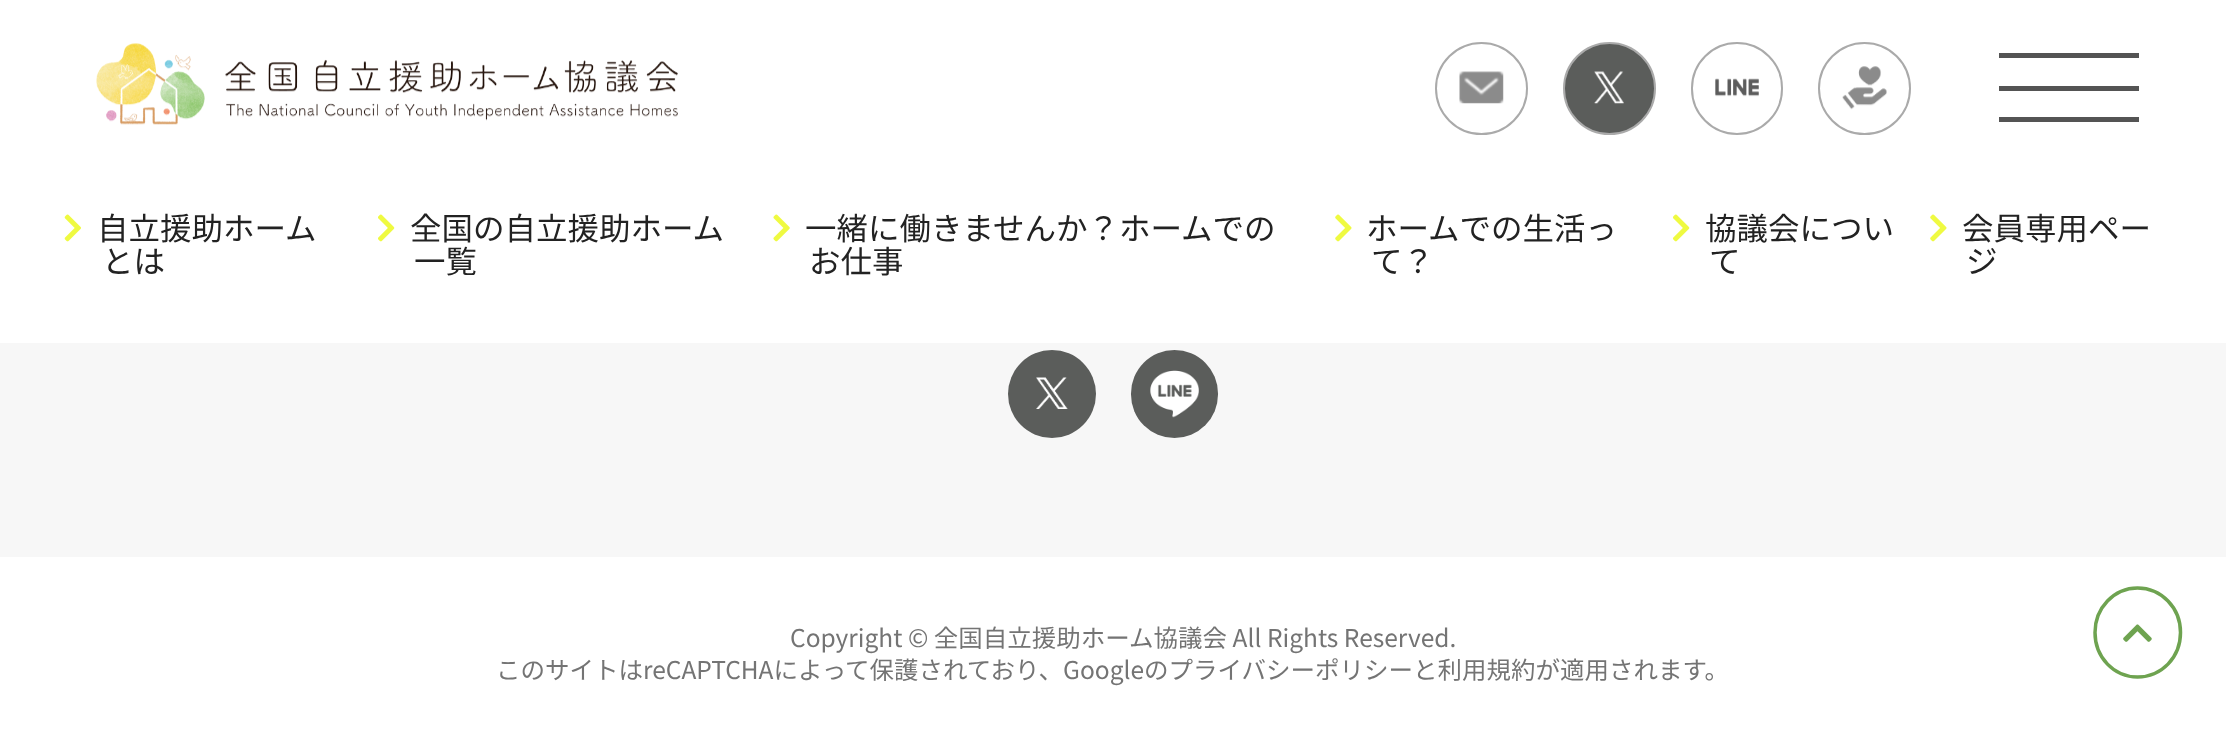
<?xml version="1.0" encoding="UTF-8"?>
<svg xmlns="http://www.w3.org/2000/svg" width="2226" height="741">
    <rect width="100%" height="100%" fill="#F7F7F7"/>
    <rect x="0" y="0" width="2226" height="343" fill="#FFFFFF"/>
    <image x="96" y="43" width="582" height="82" href="img_01.png"/>
    <circle cx="1481.5" cy="88.5" r="45.5" fill="none" stroke="#AAAAAA" stroke-width="2"/>
    <image x="1459" y="71" width="45" height="33" href="img_02.png"/>
    <circle cx="1609.5" cy="88.5" r="45.5" fill="#5B5D5B" stroke="#AAAAAA" stroke-width="2"/>
    <image x="1594" y="71" width="30" height="33" href="img_03.png"/>
    <rect x="1692" y="43" width="90" height="91" rx="45" fill="none" stroke="#AAAAAA" stroke-width="2"/>
    <image x="1715" y="78" width="44" height="19" href="img_04.png"/>
    <circle cx="1864.5" cy="88.5" r="45.5" fill="none" stroke="#AAAAAA" stroke-width="2"/>
    <image x="1842" y="66" width="45" height="44" href="img_05.png"/>
    <rect x="1999" y="53" width="140" height="5" fill="#545454"/>
    <rect x="1999" y="86" width="140" height="5" fill="#545454"/>
    <rect x="1999" y="117" width="140" height="5" fill="#545454"/>
    <image x="64" y="214" width="17" height="28" href="img_06.png"/>
    <text x="97" y="240" font-family="Noto Sans JP" font-size="31.5" fill="#222222">自立援助ホーム</text>
    <text x="102" y="273" font-family="Noto Sans JP" font-size="31.5" fill="#222222">とは</text>
    <image x="378" y="214" width="17" height="28" href="img_07.png"/>
    <text x="410" y="240" font-family="Noto Sans JP" font-size="31.5" fill="#222222">全国の自立援助ホーム</text>
    <text x="414" y="273" font-family="Noto Sans JP" font-size="31.5" fill="#222222">一覧</text>
    <image x="773" y="214" width="17" height="28" href="img_08.png"/>
    <text x="805" y="240" font-family="Noto Sans JP" font-size="31.5" fill="#222222">一緒に働きませんか？ホームでの</text>
    <text x="809" y="273" font-family="Noto Sans JP" font-size="31.5" fill="#222222">お仕事</text>
    <image x="1335" y="214" width="17" height="28" href="img_09.png"/>
    <text x="1366" y="240" font-family="Noto Sans JP" font-size="31.5" fill="#222222">ホームでの生活っ</text>
    <text x="1371" y="273" font-family="Noto Sans JP" font-size="31.5" fill="#222222">て？</text>
    <image x="1673" y="214" width="17" height="28" href="img_07.png"/>
    <text x="1705" y="240" font-family="Noto Sans JP" font-size="31.5" fill="#222222">協議会につい</text>
    <text x="1709" y="273" font-family="Noto Sans JP" font-size="31.5" fill="#222222">て</text>
    <image x="1930" y="214" width="17" height="28" href="img_09.png"/>
    <text x="1962" y="240" font-family="Noto Sans JP" font-size="31.5" fill="#222222">会員専用ペー</text>
    <text x="1966" y="273" font-family="Noto Sans JP" font-size="31.5" fill="#222222">ジ</text>
    <circle cx="1052" cy="394" r="44" fill="#5B5D5B"/>
    <image x="1036" y="377" width="32" height="32" href="img_10.png"/>
    <rect x="1131" y="350" width="87" height="88" rx="43.5" fill="#5B5D5B"/>
    <image x="1150" y="370" width="49" height="48" href="img_11.png"/>
    <rect x="0" y="557" width="2226" height="184" fill="#FFFFFF"/>
    <text x="790" y="647" font-family="Noto Sans JP" font-size="24.5" fill="#747474">Copyright © 全国自立援助ホーム協議会 All Rights Reserved.</text>
    <text x="496" y="679" font-family="Noto Sans JP" font-size="24.5" fill="#747474">このサイトはreCAPTCHAによって保護されており、Googleのプライバシーポリシーと利用規約が適用されます。</text>
    <path d="M 2137.5 588 C 2161.5 588 2180.5 608 2180.5 632.5 C 2180.5 657.5 2161.5 677 2137.5 677 C 2114 677 2095 657.5 2095 632.5 C 2095 608 2114 588 2137.5 588 Z" fill="none" stroke="#6EA350" stroke-width="3.5"/>
    <image x="2123" y="624" width="29" height="18" href="img_12.png"/>
</svg>
